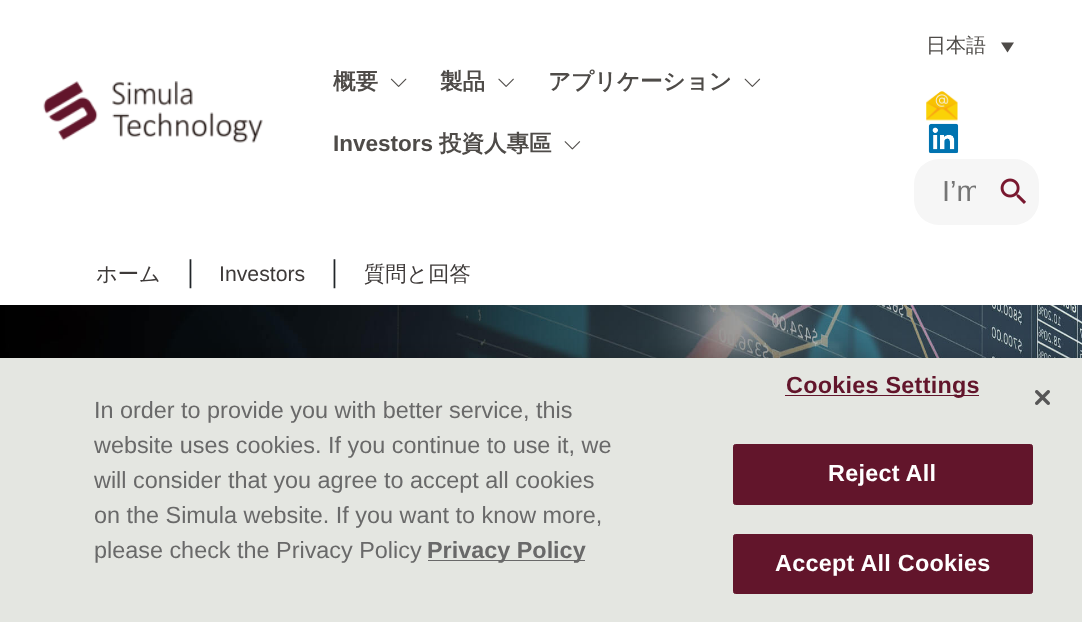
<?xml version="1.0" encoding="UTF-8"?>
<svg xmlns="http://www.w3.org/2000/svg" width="1082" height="622">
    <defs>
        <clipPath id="clip1"><rect x="943" y="175" width="33" height="34"/></clipPath>
        <filter id="blur1" x="-50%" y="-200%" width="200%" height="500%"><feGaussianBlur stdDeviation="11"/></filter>
    </defs>
    <rect width="100%" height="100%" fill="#FFFFFF"/>
    <image x="43" y="81" width="220" height="62" href="img_01.png"/>
    <text x="333" y="89" font-family="WenQuanYi Zen Hei" font-size="22.5" font-weight="700" fill="#4E4B48">概要</text>
    <image x="390" y="78" width="17" height="9" href="img_02.png"/>
    <text x="440" y="89" font-family="WenQuanYi Zen Hei" font-size="22.5" font-weight="700" fill="#4E4B48">製品</text>
    <image x="498" y="78" width="16" height="9" href="img_03.png"/>
    <text x="548" y="89" font-family="WenQuanYi Zen Hei" font-size="22.5" font-weight="700" fill="#4E4B48">アプリケーション</text>
    <image x="744" y="78" width="17" height="9" href="img_04.png"/>
    <text x="333" y="151" font-family="Liberation Sans" font-size="22.5" font-weight="700" fill="#4E4B48">Investors</text>
    <text x="439" y="151" font-family="WenQuanYi Zen Hei" font-size="22.5" font-weight="700" fill="#4E4B48">投資人專區</text>
    <image x="564" y="141" width="17" height="9" href="img_05.png"/>
    <text x="926" y="52" font-family="WenQuanYi Zen Hei" font-size="20" font-weight="500" fill="#4E4B48">日本語</text>
    <path d="M 1001 42.5 H 1014 L 1007.5 52.5 Z" fill="#4E4B48"/>
    <image x="926" y="91" width="32" height="30" href="img_06.png"/>
    <image x="928" y="123" width="31" height="31" href="img_07.png"/>
    <rect x="914" y="159" width="125" height="66" rx="25" fill="#F6F6F6"/>
    <g clip-path="url(#clip1)">
        <text x="942" y="201" font-family="Liberation Sans" font-size="29" fill="#757575">I’m</text>
    </g>
    <image x="1000" y="178" width="26" height="26" href="img_08.png"/>
    <text x="96" y="281" font-family="WenQuanYi Zen Hei" font-size="21.25" font-weight="500" fill="#3E3A39">ホーム</text>
    <text x="176" y="281" font-family="WenQuanYi Zen Hei" font-size="29" font-weight="500" fill="#212529">｜</text>
    <text x="219" y="281" font-family="Liberation Sans" font-size="21.25" fill="#3E3A39">Investors</text>
    <text x="320" y="281" font-family="WenQuanYi Zen Hei" font-size="29" font-weight="500" fill="#212529">｜</text>
    <text x="364" y="281" font-family="WenQuanYi Zen Hei" font-size="21.25" font-weight="500" fill="#3E3A39">質問と回答</text>
    <image x="0" y="305" width="1082" height="53" href="img_09.png"/>
    <rect x="0" y="358" width="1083" height="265" fill="#000000" fill-opacity="0.2" filter="url(#blur1)"/>
    <rect x="0" y="358" width="1082" height="264" fill="#E4E6E1"/>
    <text font-family="Liberation Sans" font-size="23.4" fill="#696969">
        <tspan x="94" y="418">In order to provide you with better service, this</tspan>
        <tspan x="94" y="453">website uses cookies. If you continue to use it, we</tspan>
        <tspan x="94" y="488">will consider that you agree to accept all cookies</tspan>
        <tspan x="94" y="523">on the Simula website. If you want to know more,</tspan>
        <tspan x="94" y="558">please check the Privacy Policy</tspan>
    </text>
    <rect x="428" y="560" width="157" height="1" fill="#696969"/>
    <text x="427" y="558" font-family="Liberation Sans" font-size="23.4" font-weight="700" fill="#696969">Privacy Policy</text>
    <rect x="785" y="395" width="194" height="1" fill="#62152B"/>
    <text x="786" y="393" font-family="Liberation Sans" font-size="23.4" font-weight="700" letter-spacing="0.25" fill="#62152B">Cookies Settings</text>
    <rect x="733.5" y="444.5" width="299" height="60" rx="2" fill="#62152B" stroke="#62152B"/>
    <text x="828" y="481" font-family="Liberation Sans" font-size="23.4" font-weight="700" letter-spacing="0.25" fill="#FFFFFF">Reject All</text>
    <rect x="733.5" y="534.5" width="299" height="59" rx="2" fill="#62152B" stroke="#62152B"/>
    <text x="775" y="571" font-family="Liberation Sans" font-size="23.4" font-weight="700" letter-spacing="0.25" fill="#FFFFFF">Accept All Cookies</text>
    <image x="1035" y="390" width="15" height="15" href="img_10.png"/>
</svg>
